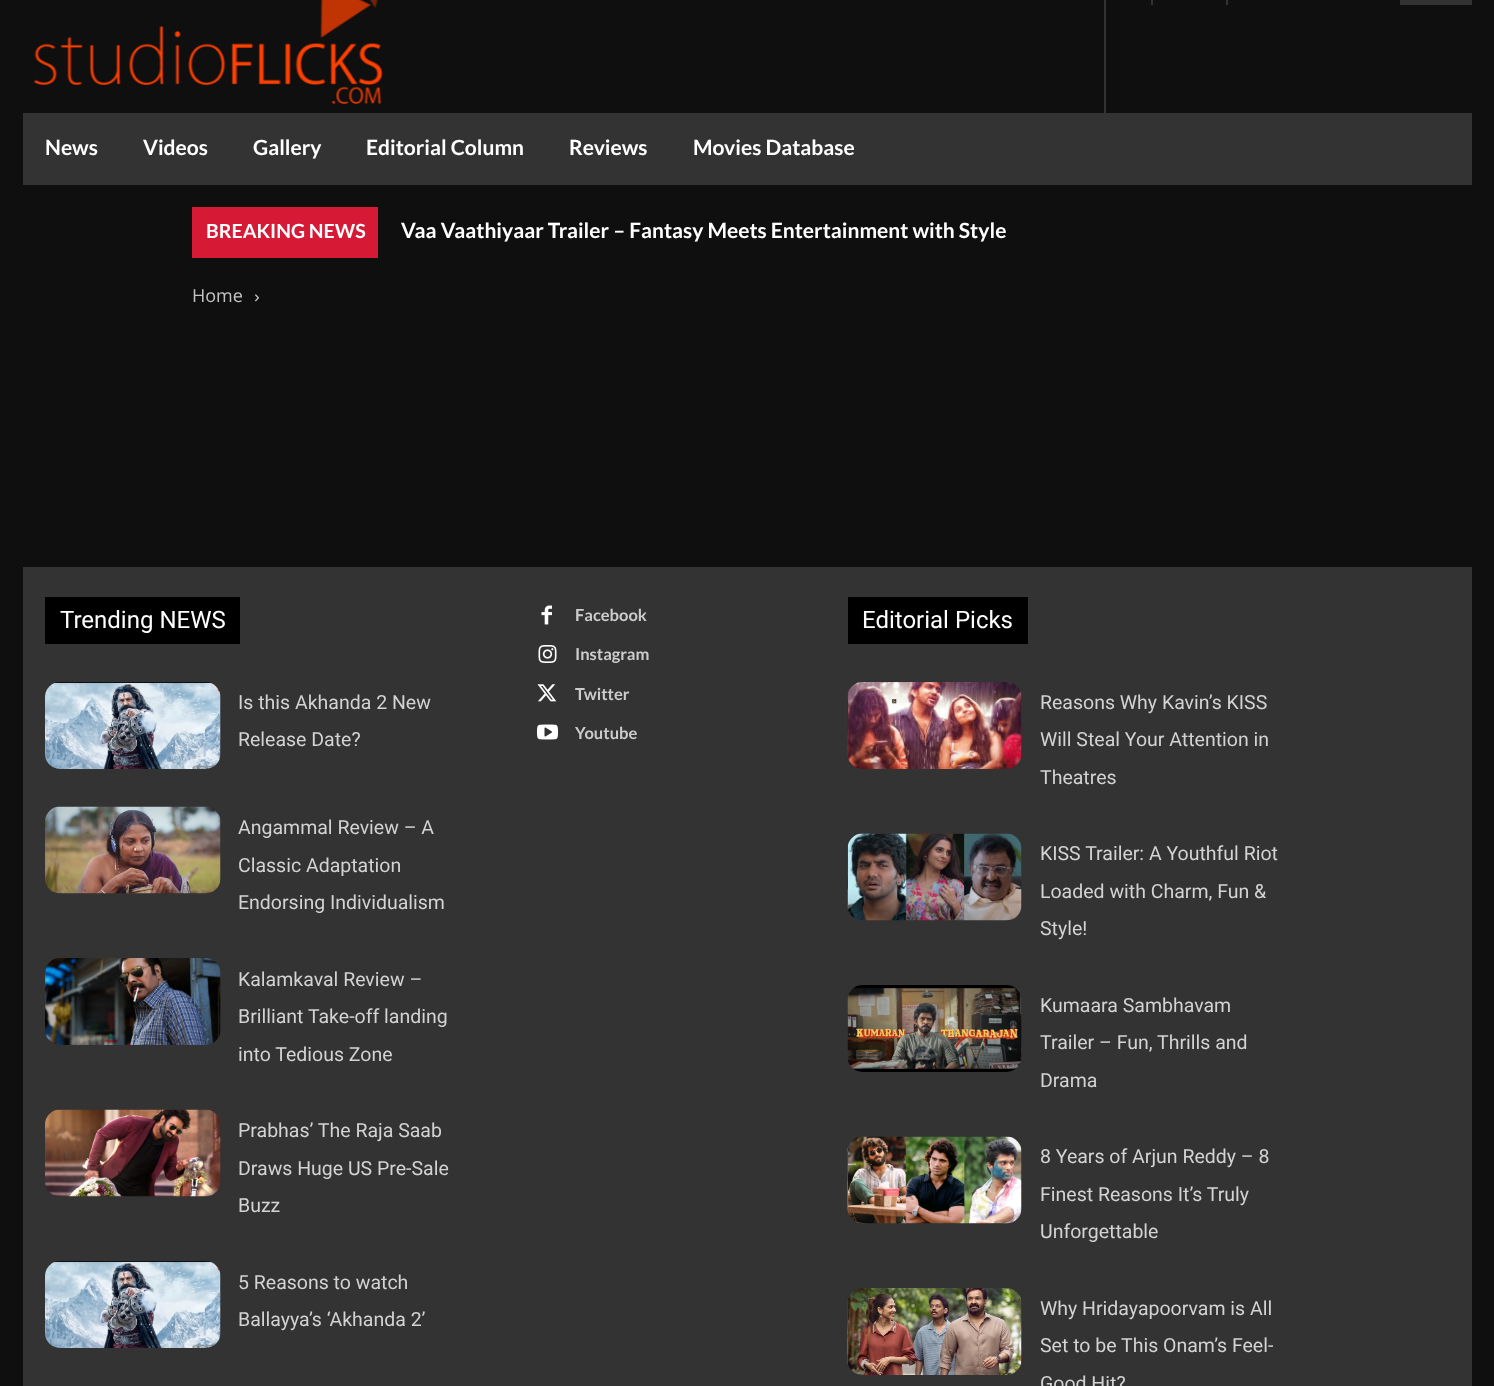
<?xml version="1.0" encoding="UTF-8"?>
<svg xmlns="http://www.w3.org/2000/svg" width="1494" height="1386">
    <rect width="100%" height="100%" fill="#0F0F0F"/>
    <image x="33" y="0" width="350" height="104" href="img_01.png"/>
    <rect x="1104" y="0" width="2" height="113" fill="#333333"/>
    <rect x="1151" y="0" width="2" height="5" fill="#333333"/>
    <rect x="1226" y="0" width="2" height="5" fill="#333333"/>
    <rect x="1400" y="0" width="72" height="5" fill="#333333"/>
    <rect x="23" y="113" width="1449" height="72" fill="#333333"/>
    <text x="45" y="155" font-family="Lato" font-size="21" font-weight="700" fill="#FFFFFF">News</text>
    <text x="143" y="155" font-family="Lato" font-size="21" font-weight="700" fill="#FFFFFF">Videos</text>
    <text x="253" y="155" font-family="Lato" font-size="21" font-weight="700" fill="#FFFFFF">Gallery</text>
    <text x="366" y="155" font-family="Lato" font-size="21" font-weight="700" fill="#FFFFFF">Editorial Column</text>
    <text x="569" y="155" font-family="Lato" font-size="21" font-weight="700" fill="#FFFFFF">Reviews</text>
    <text x="693" y="155" font-family="Lato" font-size="21" font-weight="700" fill="#FFFFFF">Movies Database</text>
    <rect x="192" y="207" width="186" height="51" fill="#D61935"/>
    <text x="206" y="238" font-family="Lato" font-size="19.5" font-weight="700" fill="#FFFFFF">BREAKING NEWS</text>
    <text x="401" y="238" font-family="Lato" font-size="21" font-weight="700" fill="#FFFFFF">Vaa Vaathiyaar Trailer – Fantasy Meets Entertainment with Style</text>
    <text x="192" y="302" font-family="Open Sans" font-size="18" fill="#C3C3C3">Home</text>
    <image x="255" y="294" width="4" height="8" href="img_02.png"/>
    <rect x="23" y="567" width="1449" height="819" fill="#333333"/>
    <rect x="45" y="597" width="195" height="47" fill="#000000"/>
    <text x="60" y="628" font-family="Roboto" font-size="24" fill="#FFFFFF">Trending NEWS</text>
    <image x="45" y="682" width="176" height="87" href="img_03.png"/>
    <text font-family="Roboto" font-size="19.5" fill="#D3D3D3">
        <tspan x="238" y="709">Is this Akhanda 2 New</tspan>
        <tspan x="238" y="746">Release Date?</tspan>
    </text>
    <image x="45" y="806" width="176" height="88" href="img_04.png"/>
    <text font-family="Roboto" font-size="19.5" fill="#D3D3D3">
        <tspan x="238" y="834">Angammal Review – A</tspan>
        <tspan x="238" y="872">Classic Adaptation</tspan>
        <tspan x="238" y="909">Endorsing Individualism</tspan>
    </text>
    <image x="45" y="958" width="176" height="87" href="img_05.png"/>
    <text font-family="Roboto" font-size="19.5" fill="#D3D3D3">
        <tspan x="238" y="986">Kalamkaval Review –</tspan>
        <tspan x="238" y="1023">Brilliant Take-off landing</tspan>
        <tspan x="238" y="1061">into Tedious Zone</tspan>
    </text>
    <image x="45" y="1109" width="176" height="88" href="img_06.png"/>
    <text font-family="Roboto" font-size="19.5" fill="#D3D3D3">
        <tspan x="238" y="1137">Prabhas’ The Raja Saab</tspan>
        <tspan x="238" y="1175">Draws Huge US Pre-Sale</tspan>
        <tspan x="238" y="1212">Buzz</tspan>
    </text>
    <image x="45" y="1261" width="176" height="87" href="img_07.png"/>
    <text font-family="Roboto" font-size="19.5" fill="#D3D3D3">
        <tspan x="238" y="1289">5 Reasons to watch</tspan>
        <tspan x="238" y="1326">Ballayya’s ‘Akhanda 2’</tspan>
    </text>
    <image x="541" y="605" width="11" height="20" href="img_08.png"/>
    <text x="575" y="621" font-family="Lato" font-size="16.5" font-weight="700" fill="#CCCCCC">Facebook</text>
    <image x="538" y="645" width="19" height="18" href="img_09.png"/>
    <text x="575" y="660" font-family="Lato" font-size="16.5" font-weight="700" fill="#CCCCCC">Instagram</text>
    <image x="537" y="684" width="20" height="18" href="img_10.png"/>
    <text x="575" y="700" font-family="Lato" font-size="16.5" font-weight="700" fill="#CCCCCC">Twitter</text>
    <image x="537" y="724" width="21" height="16" href="img_11.png"/>
    <text x="575" y="739" font-family="Lato" font-size="16.5" font-weight="700" fill="#CCCCCC">Youtube</text>
    <rect x="848" y="597" width="180" height="47" fill="#000000"/>
    <text x="862" y="628" font-family="Roboto" font-size="24" fill="#FFFFFF">Editorial Picks</text>
    <image x="847" y="682" width="175" height="87" href="img_12.png"/>
    <text font-family="Roboto" font-size="19.5" fill="#D3D3D3">
        <tspan x="1040" y="709">Reasons Why Kavin’s KISS</tspan>
        <tspan x="1040" y="746">Will Steal Your Attention in</tspan>
        <tspan x="1040" y="784">Theatres</tspan>
    </text>
    <image x="847" y="833" width="175" height="88" href="img_13.png"/>
    <text font-family="Roboto" font-size="19.5" fill="#D3D3D3">
        <tspan x="1040" y="860">KISS Trailer: A Youthful Riot</tspan>
        <tspan x="1040" y="898">Loaded with Charm, Fun &amp;</tspan>
        <tspan x="1040" y="935">Style!</tspan>
    </text>
    <image x="847" y="985" width="175" height="87" href="img_14.png"/>
    <text font-family="Roboto" font-size="19.5" fill="#D3D3D3">
        <tspan x="1040" y="1012">Kumaara Sambhavam</tspan>
        <tspan x="1040" y="1049">Trailer – Fun, Thrills and</tspan>
        <tspan x="1040" y="1087">Drama</tspan>
    </text>
    <image x="847" y="1136" width="175" height="88" href="img_15.png"/>
    <text font-family="Roboto" font-size="19.5" fill="#D3D3D3">
        <tspan x="1040" y="1163">8 Years of Arjun Reddy – 8</tspan>
        <tspan x="1040" y="1201">Finest Reasons It’s Truly</tspan>
        <tspan x="1040" y="1238">Unforgettable</tspan>
    </text>
    <image x="847" y="1288" width="175" height="87" href="img_16.png"/>
    <text font-family="Roboto" font-size="19.5" fill="#D3D3D3">
        <tspan x="1040" y="1315">Why Hridayapoorvam is All</tspan>
        <tspan x="1040" y="1352">Set to be This Onam’s Feel-</tspan>
        <tspan x="1040" y="1390">Good Hit?</tspan>
    </text>
</svg>
